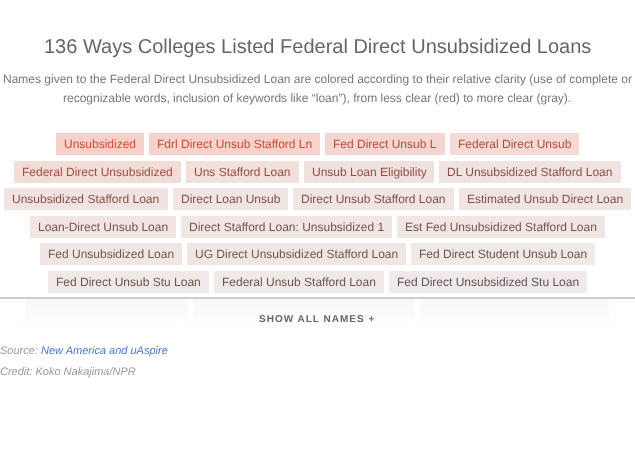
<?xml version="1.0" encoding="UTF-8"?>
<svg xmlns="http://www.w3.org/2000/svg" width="635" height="475">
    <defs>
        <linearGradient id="g1" gradientUnits="userSpaceOnUse" x1="318" y1="330" x2="318" y2="299"><stop offset="0" stop-color="#FFFFFF"/><stop offset="1" stop-color="#FFFFFF" stop-opacity="0.6"/></linearGradient>
    </defs>
    <rect width="100%" height="100%" fill="#FFFFFF"/>
    <text x="44" y="53" font-family="Liberation Sans" font-size="20" fill="#666666">136 Ways Colleges Listed Federal Direct Unsubsidized Loans</text>
    <text x="3" y="83" font-family="Liberation Sans" font-size="12" fill="#777777">Names given to the Federal Direct Unsubsidized Loan are colored according to their relative clarity (use of complete or</text>
    <text x="63" y="102" font-family="Liberation Sans" font-size="12" fill="#777777">recognizable words, inclusion of keywords like “loan”), from less clear (red) to more clear (gray).</text>
    <rect x="56" y="133" width="88" height="22" fill="#F5D1CA"/>
    <text x="64" y="148" font-family="Liberation Sans" font-size="12" fill="#D8472B">Unsubsidized</text>
    <rect x="149" y="133" width="171" height="22" fill="#F5D3CC"/>
    <text x="157" y="148" font-family="Liberation Sans" font-size="12" fill="#D0482E">Fdrl Direct Unsub Stafford Ln</text>
    <rect x="325" y="133" width="120" height="22" fill="#F4D6D1"/>
    <text x="333" y="148" font-family="Liberation Sans" font-size="12" fill="#BF4A33">Fed Direct Unsub L</text>
    <rect x="450" y="133" width="129" height="22" fill="#F3DAD5"/>
    <text x="458" y="148" font-family="Liberation Sans" font-size="12" fill="#AF4B38">Federal Direct Unsub</text>
    <rect x="14" y="161" width="167" height="22" fill="#F2DCD8"/>
    <text x="22" y="176" font-family="Liberation Sans" font-size="12" fill="#A74C3B">Federal Direct Unsubsidized</text>
    <rect x="186" y="161" width="113" height="22" fill="#F2E0DC"/>
    <text x="194" y="176" font-family="Liberation Sans" font-size="12" fill="#974E40">Uns Stafford Loan</text>
    <rect x="304" y="161" width="130" height="22" fill="#F1E1DE"/>
    <text x="312" y="176" font-family="Liberation Sans" font-size="12" fill="#8E4F43">Unsub Loan Eligibility</text>
    <rect x="439" y="161" width="182" height="22" fill="#F1E3E1"/>
    <text x="447" y="176" font-family="Liberation Sans" font-size="12" fill="#865045">DL Unsubsidized Stafford Loan</text>
    <rect x="4" y="188" width="164" height="22" fill="#F1E3E1"/>
    <text x="12" y="203" font-family="Liberation Sans" font-size="12" fill="#865045">Unsubsidized Stafford Loan</text>
    <rect x="173" y="188" width="115" height="22" fill="#F0E5E3"/>
    <text x="181" y="203" font-family="Liberation Sans" font-size="12" fill="#7E5148">Direct Loan Unsub</text>
    <rect x="293" y="188" width="161" height="22" fill="#F0E5E3"/>
    <text x="301" y="203" font-family="Liberation Sans" font-size="12" fill="#7E5148">Direct Unsub Stafford Loan</text>
    <rect x="459" y="188" width="172" height="22" fill="#F0E5E3"/>
    <text x="467" y="203" font-family="Liberation Sans" font-size="12" fill="#7E5148">Estimated Unsub Direct Loan</text>
    <rect x="30" y="216" width="146" height="22" fill="#F0E5E3"/>
    <text x="38" y="231" font-family="Liberation Sans" font-size="12" fill="#7E5148">Loan-Direct Unsub Loan</text>
    <rect x="181" y="216" width="211" height="22" fill="#F0E7E5"/>
    <text x="189" y="231" font-family="Liberation Sans" font-size="12" fill="#76524B">Direct Stafford Loan: Unsubsidized 1</text>
    <rect x="397" y="216" width="208" height="22" fill="#F0E7E5"/>
    <text x="405" y="231" font-family="Liberation Sans" font-size="12" fill="#76524B">Est Fed Unsubsidized Stafford Loan</text>
    <rect x="40" y="243" width="142" height="22" fill="#F0E7E5"/>
    <text x="48" y="258" font-family="Liberation Sans" font-size="12" fill="#76524B">Fed Unsubsidized Loan</text>
    <rect x="187" y="243" width="219" height="22" fill="#F0E7E5"/>
    <text x="195" y="258" font-family="Liberation Sans" font-size="12" fill="#76524B">UG Direct Unsubsidized Stafford Loan</text>
    <rect x="411" y="243" width="184" height="22" fill="#EFE9E7"/>
    <text x="419" y="258" font-family="Liberation Sans" font-size="12" fill="#6E524D">Fed Direct Student Unsub Loan</text>
    <rect x="48" y="271" width="161" height="22" fill="#EFE9E7"/>
    <text x="56" y="286" font-family="Liberation Sans" font-size="12" fill="#6E524D">Fed Direct Unsub Stu Loan</text>
    <rect x="214" y="271" width="170" height="22" fill="#EFE9E7"/>
    <text x="222" y="286" font-family="Liberation Sans" font-size="12" fill="#6E524D">Federal Unsub Stafford Loan</text>
    <rect x="389" y="271" width="198" height="22" fill="#EFEAEA"/>
    <text x="397" y="286" font-family="Liberation Sans" font-size="12" fill="#655350">Fed Direct Unsubsidized Stu Loan</text>
    <rect x="26" y="299" width="162" height="21" fill="#EFEAEA"/>
    <rect x="193" y="299" width="222" height="21" fill="#EFEAEA"/>
    <rect x="420" y="299" width="189" height="21" fill="#EEECEC"/>
    <rect x="12" y="326" width="166" height="4" fill="#EEECEC"/>
    <rect x="183" y="326" width="225" height="4" fill="#EEEEEE"/>
    <rect x="413" y="326" width="210" height="4" fill="#EEEEEE"/>
    <rect x="12" y="299" width="611" height="31" fill="url(#g1)"/>
    <rect x="0" y="297" width="635" height="2" fill="#CCCCCC"/>
    <text x="259" y="322" font-family="Liberation Sans" font-size="10" font-weight="700" letter-spacing="1" fill="#666666">SHOW ALL NAMES +</text>
    <text x="0" y="354" font-family="Liberation Sans" font-size="11" font-style="italic" fill="#999999">Source:</text>
    <text x="41" y="354" font-family="Liberation Sans" font-size="11" font-style="italic" fill="#4774CC">New America and uAspire</text>
    <text x="0" y="375" font-family="Liberation Sans" font-size="11" font-style="italic" fill="#999999">Credit: Koko Nakajima/NPR</text>
</svg>
